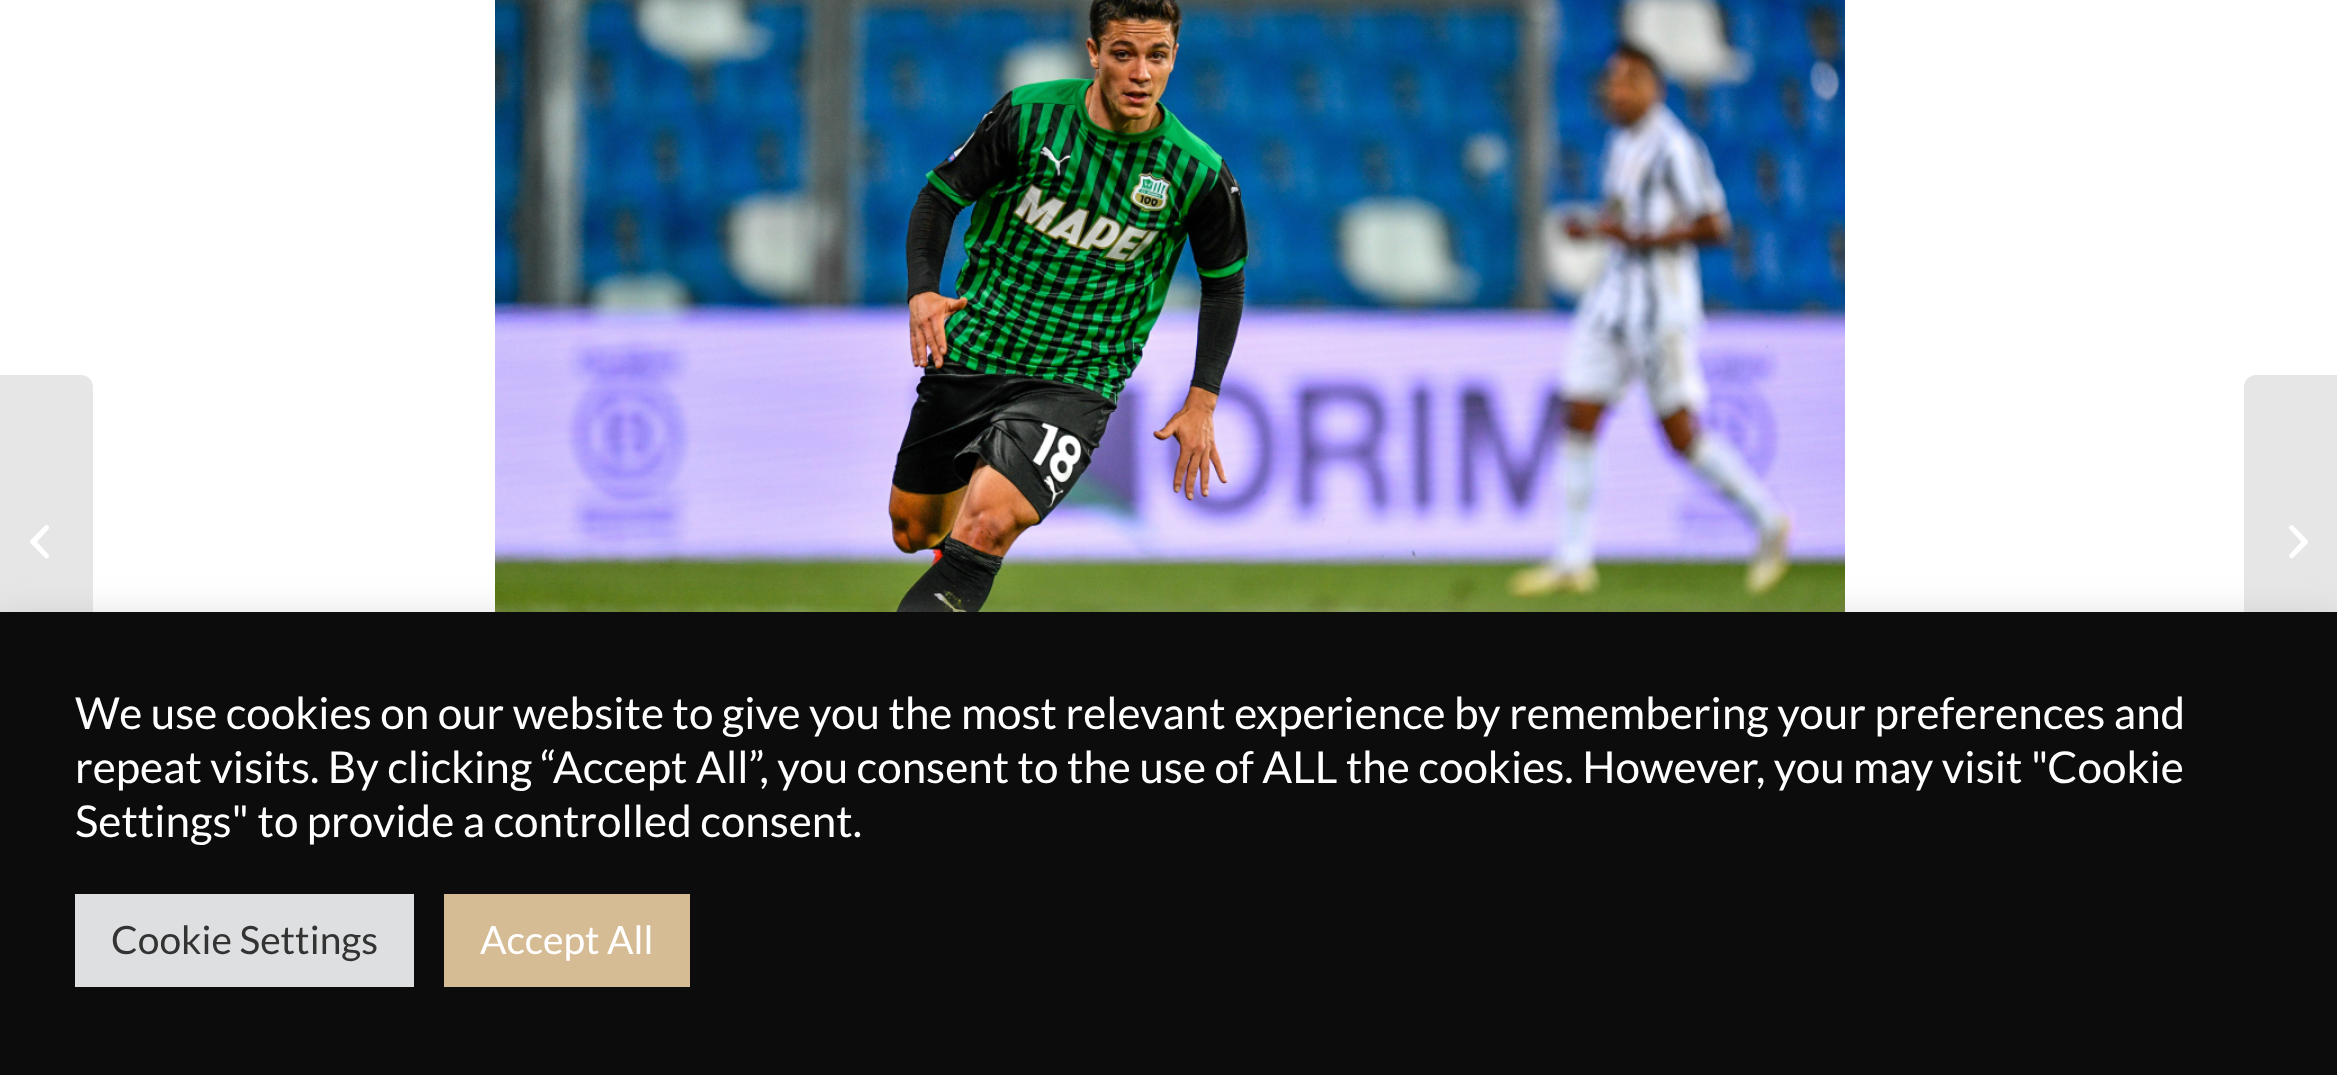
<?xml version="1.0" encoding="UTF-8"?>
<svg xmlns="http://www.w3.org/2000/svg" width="2337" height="1075">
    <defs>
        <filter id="blur1" x="-50%" y="-200%" width="200%" height="500%"><feGaussianBlur stdDeviation="15"/></filter>
    </defs>
    <rect width="100%" height="100%" fill="#FFFFFF"/>
    <path d="M 0 375 H 81 C 87.5 375 93 380.5 93 387 V 693 C 93 699.5 87.5 705 81 705 H 0 Z" fill="#E6E6E6"/>
    <image x="30" y="525" width="19" height="34" href="img_01.png"/>
    <image x="495" y="0" width="1350" height="612" href="img_02.png"/>
    <path d="M 2256 375 H 2337 V 705 H 2256 C 2249.5 705 2244 699.5 2244 693 V 387 C 2244 380.5 2249.5 375 2256 375 Z" fill="#E6E6E6"/>
    <image x="2289" y="525" width="19" height="34" href="img_03.png"/>
    <rect x="0" y="609" width="2337" height="465" fill="#ACABAB" fill-opacity="0.3" filter="url(#blur1)"/>
    <rect x="0" y="612" width="2337" height="463" fill="#0C0C0C"/>
    <text font-family="Lato" font-size="44" fill="#FFFFFF">
        <tspan x="75" y="729">We use cookies on our website to give you the most relevant experience by remembering your preferences and</tspan>
        <tspan x="75" y="783">repeat visits. By clicking “Accept All”, you consent to the use of ALL the cookies. However, you may visit "Cookie</tspan>
        <tspan x="75" y="837">Settings" to provide a controlled consent.</tspan>
    </text>
    <rect x="75" y="894" width="339" height="93" fill="#DEDFE0"/>
    <text x="111" y="954" font-family="Lato" font-size="39" fill="#333333">Cookie Settings</text>
    <rect x="444" y="894" width="246" height="93" fill="#D5BC95"/>
    <text x="480" y="954" font-family="Lato" font-size="39" fill="#FFFFFF">Accept All</text>
</svg>
